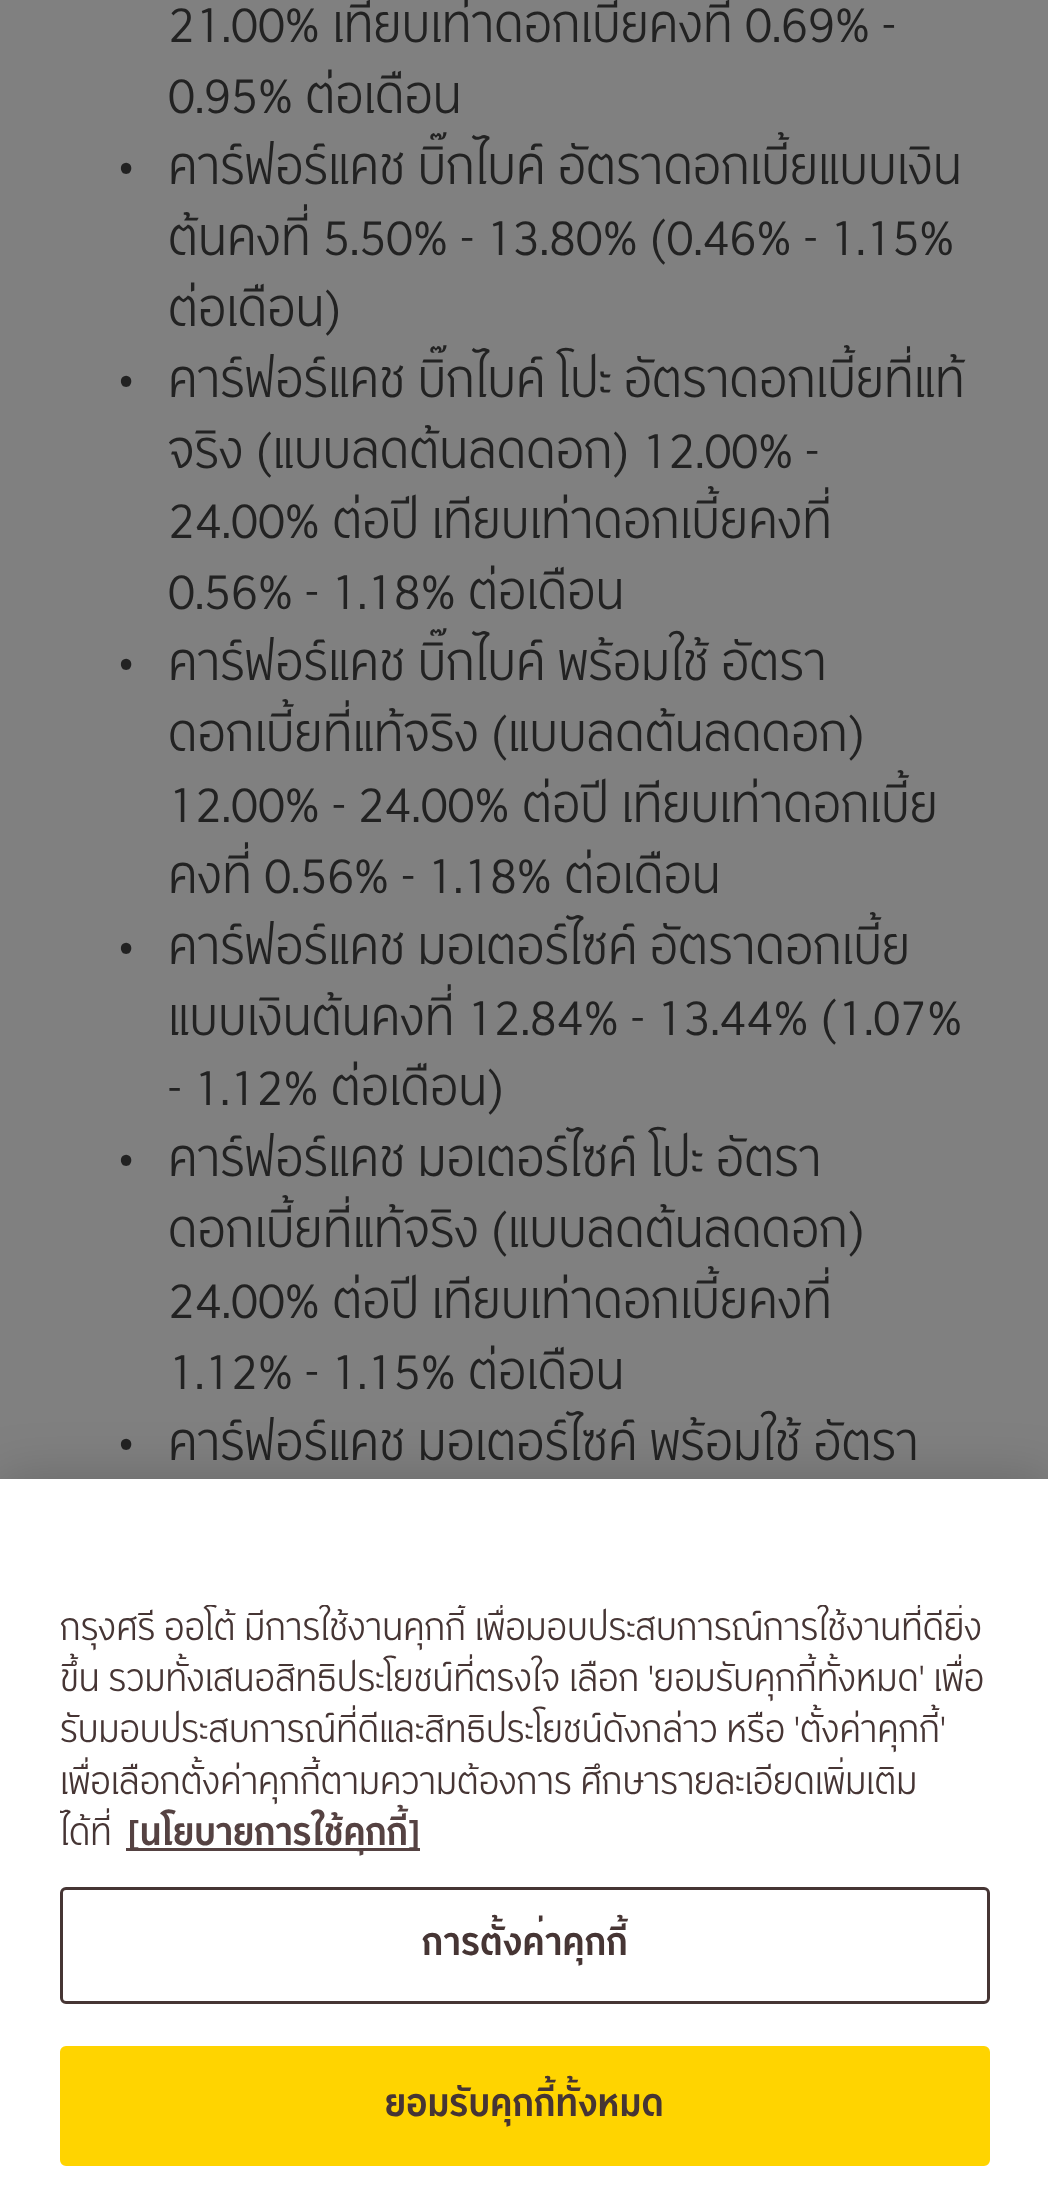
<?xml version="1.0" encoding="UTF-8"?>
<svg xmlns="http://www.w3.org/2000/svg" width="1048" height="2208">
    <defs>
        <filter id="blur1" x="-50%" y="-200%" width="200%" height="500%"><feGaussianBlur stdDeviation="27"/></filter>
        <clipPath id="clip1"><rect x="60" y="1605" width="930" height="255"/></clipPath>
    </defs>
    <rect width="100%" height="100%" fill="#808080"/>
    <text font-family="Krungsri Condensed" font-size="47.25" fill="#222222">
        <tspan x="168" y="42">21.00% เทียบเท่าดอกเบี้ยคงที่ 0.69% -</tspan>
        <tspan x="168" y="113">0.95% ต่อเดือน</tspan>
    </text>
    <text x="119" y="184" font-family="Krungsri Condensed" font-size="47.25" fill="#222222">•</text>
    <text font-family="Krungsri Condensed" font-size="47.25" fill="#222222">
        <tspan x="168" y="184">คาร์ฟอร์แคช บิ๊กไบค์ อัตราดอกเบี้ยแบบเงิน</tspan>
        <tspan x="168" y="255">ต้นคงที่ 5.50% - 13.80% (0.46% - 1.15%</tspan>
        <tspan x="168" y="326">ต่อเดือน)</tspan>
    </text>
    <text x="119" y="397" font-family="Krungsri Condensed" font-size="47.25" fill="#222222">•</text>
    <text font-family="Krungsri Condensed" font-size="47.25" fill="#222222">
        <tspan x="168" y="397">คาร์ฟอร์แคช บิ๊กไบค์ โปะ อัตราดอกเบี้ยที่แท้</tspan>
        <tspan x="168" y="468">จริง (แบบลดต้นลดดอก) 12.00% -</tspan>
        <tspan x="168" y="538">24.00% ต่อปี เทียบเท่าดอกเบี้ยคงที่</tspan>
        <tspan x="168" y="609">0.56% - 1.18% ต่อเดือน</tspan>
    </text>
    <text x="119" y="680" font-family="Krungsri Condensed" font-size="47.25" fill="#222222">•</text>
    <text font-family="Krungsri Condensed" font-size="47.25" fill="#222222">
        <tspan x="168" y="680">คาร์ฟอร์แคช บิ๊กไบค์ พร้อมใช้ อัตรา</tspan>
        <tspan x="168" y="751">ดอกเบี้ยที่แท้จริง (แบบลดต้นลดดอก)</tspan>
        <tspan x="168" y="822">12.00% - 24.00% ต่อปี เทียบเท่าดอกเบี้ย</tspan>
        <tspan x="168" y="893">คงที่ 0.56% - 1.18% ต่อเดือน</tspan>
    </text>
    <text x="119" y="964" font-family="Krungsri Condensed" font-size="47.25" fill="#222222">•</text>
    <text font-family="Krungsri Condensed" font-size="47.25" fill="#222222">
        <tspan x="168" y="964">คาร์ฟอร์แคช มอเตอร์ไซค์ อัตราดอกเบี้ย</tspan>
        <tspan x="168" y="1035">แบบเงินต้นคงที่ 12.84% - 13.44% (1.07%</tspan>
        <tspan x="168" y="1105">- 1.12% ต่อเดือน)</tspan>
    </text>
    <text x="119" y="1176" font-family="Krungsri Condensed" font-size="47.25" fill="#222222">•</text>
    <text font-family="Krungsri Condensed" font-size="47.25" fill="#222222">
        <tspan x="168" y="1176">คาร์ฟอร์แคช มอเตอร์ไซค์ โปะ อัตรา</tspan>
        <tspan x="168" y="1247">ดอกเบี้ยที่แท้จริง (แบบลดต้นลดดอก)</tspan>
        <tspan x="168" y="1318">24.00% ต่อปี เทียบเท่าดอกเบี้ยคงที่</tspan>
        <tspan x="168" y="1389">1.12% - 1.15% ต่อเดือน</tspan>
    </text>
    <text x="119" y="1460" font-family="Krungsri Condensed" font-size="47.25" fill="#222222">•</text>
    <text x="168" y="1460" font-family="Krungsri Condensed" font-size="47.25" fill="#222222">คาร์ฟอร์แคช มอเตอร์ไซค์ พร้อมใช้ อัตรา</text>
    <rect x="0" y="1479" width="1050" height="729" fill="#000000" fill-opacity="0.2" filter="url(#blur1)"/>
    <rect x="0" y="1479" width="1048" height="729" fill="#FFFFFF"/>
    <g clip-path="url(#clip1)">
        <text font-family="Krungsri Condensed" font-size="34.15" fill="#463534">
            <tspan x="60" y="1640">กรุงศรี ออโต้ มีการใช้งานคุกกี้ เพื่อมอบประสบการณ์การใช้งานที่ดียิ่ง</tspan>
            <tspan x="60" y="1691">ขึ้น รวมทั้งเสนอสิทธิประโยชน์ที่ตรงใจ เลือก 'ยอมรับคุกกี้ทั้งหมด' เพื่อ</tspan>
            <tspan x="60" y="1742">รับมอบประสบการณ์ที่ดีและสิทธิประโยชน์ดังกล่าว หรือ 'ตั้งค่าคุกกี้'</tspan>
            <tspan x="60" y="1794">เพื่อเลือกตั้งค่าคุกกี้ตามความต้องการ ศึกษารายละเอียดเพิ่มเติม</tspan>
            <tspan x="60" y="1845">ได้ที่</tspan>
        </text>
    </g>
    <rect x="126" y="1848" width="294" height="3" fill="#554242"/>
    <text x="127" y="1845" font-family="Krungsri Condensed" font-size="34.15" font-weight="700" fill="#554242">[นโยบายการใช้คุกกี้]</text>
    <rect x="61.5" y="1888.5" width="927" height="114" rx="4.5" fill="none" stroke="#463534" stroke-width="3"/>
    <text x="422" y="1955" font-family="Krungsri Condensed" font-size="34.15" font-weight="700" letter-spacing="0.3" fill="#463534">การตั้งค่าคุกกี้</text>
    <rect x="61.5" y="2047.5" width="927" height="117" rx="4.5" fill="#FFD400" stroke="#FFD400" stroke-width="3"/>
    <text x="385" y="2116" font-family="Krungsri Condensed" font-size="34.15" font-weight="700" letter-spacing="0.3" fill="#463534">ยอมรับคุกกี้ทั้งหมด</text>
</svg>
